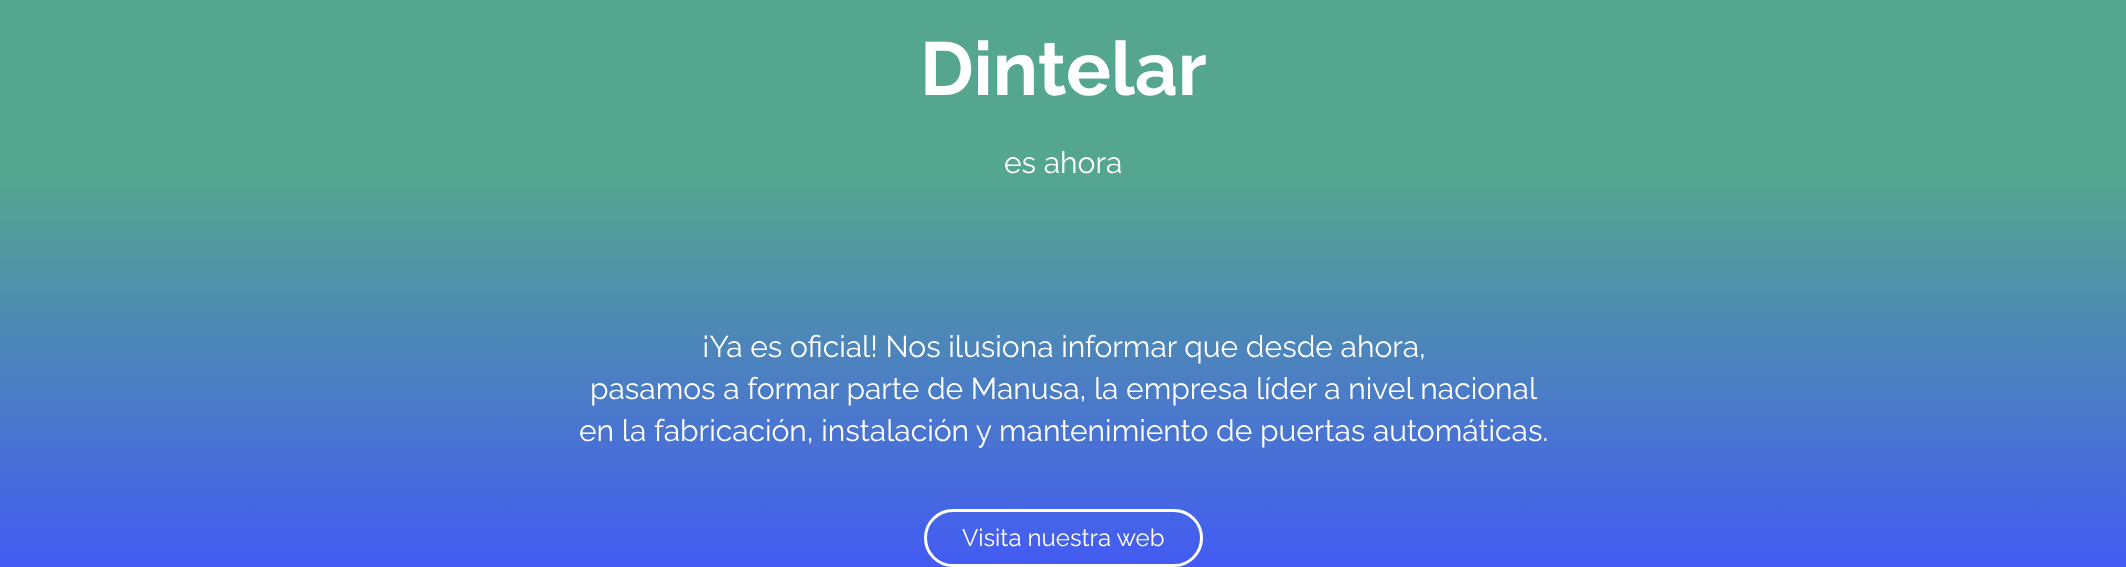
<?xml version="1.0" encoding="UTF-8"?>
<svg xmlns="http://www.w3.org/2000/svg" width="2126" height="567">
    <defs>
        <linearGradient id="g1" gradientUnits="userSpaceOnUse" x1="1064" y1="0" x2="1064" y2="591"><stop offset="0.3" stop-color="#54A68F"/><stop offset="1" stop-color="#4256F9"/></linearGradient>
    </defs>
    <rect width="100%" height="100%" fill="#FFFFFF"/>
    <rect x="0" y="0" width="2126" height="567" fill="url(#g1)"/>
    <text x="920" y="95" font-family="Raleway" font-size="75" font-weight="700" fill="#FFFFFF">Dintelar</text>
    <text x="1004" y="173" font-family="Raleway" font-size="30" fill="#FFFFFF">es ahora</text>
    <text x="702" y="357" font-family="Raleway" font-size="30" fill="#FFFFFF">¡Ya es oficial! Nos ilusiona informar que desde ahora,</text>
    <text x="590" y="399" font-family="Raleway" font-size="30" fill="#FFFFFF">pasamos a formar parte de Manusa, la empresa líder a nivel nacional</text>
    <text x="579" y="441" font-family="Raleway" font-size="30" fill="#FFFFFF">en la fabricación, instalación y mantenimiento de puertas automáticas.</text>
    <rect x="925.5" y="510.5" width="276" height="55" rx="27.5" fill="none" stroke="#FFFFFF" stroke-width="3"/>
    <text x="962" y="546" font-family="Raleway" font-size="24" fill="#FFFFFF">Visita nuestra web</text>
</svg>
